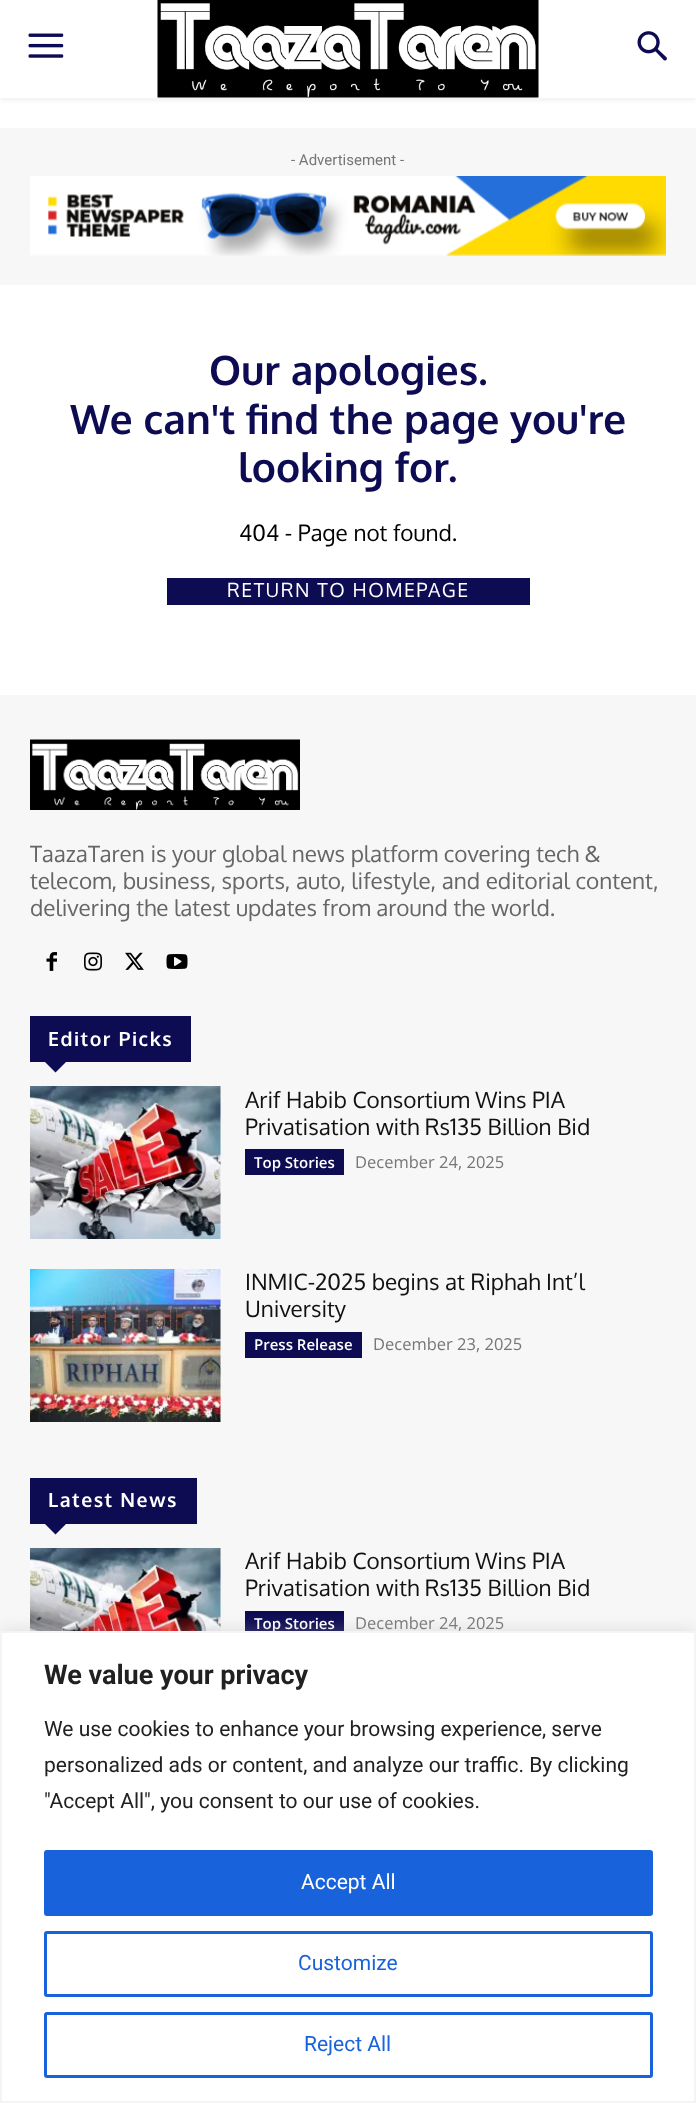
<?xml version="1.0" encoding="UTF-8"?>
<svg xmlns="http://www.w3.org/2000/svg" width="696" height="2103">
    <defs>
        <clipPath id="clip1"><path d="M 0 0 H 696 V 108 H 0 Z M 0 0 H 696 V 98 H 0 Z" clip-rule="evenodd"/></clipPath>
        <filter id="blur1" x="-50%" y="-200%" width="200%" height="500%"><feGaussianBlur stdDeviation="2"/></filter>
        <filter id="blur2" x="-50%" y="-200%" width="200%" height="500%"><feGaussianBlur stdDeviation="7.5"/></filter>
    </defs>
    <rect width="100%" height="100%" fill="#FFFFFF"/>
    <image x="28" y="33" width="36" height="25" href="img_01.png"/>
    <image x="157" y="0" width="382" height="98" href="img_02.png"/>
    <image x="637" y="31" width="30" height="30" href="img_03.png"/>
    <g clip-path="url(#clip1)">
        <rect x="0" y="3" width="696" height="98" fill="#000000" fill-opacity="0.05" filter="url(#blur1)"/>
    </g>
    <rect x="0" y="128" width="696" height="157" fill="#F7F7F7"/>
    <text x="291" y="165" font-family="Roboto" font-size="15" fill="#767676">- Advertisement -</text>
    <image x="30" y="176" width="636" height="80" href="img_04.png"/>
    <text x="209" y="385" font-family="Oxygen" font-size="40.5" font-weight="700" fill="#0D0B52">Our apologies.</text>
    <text x="70" y="434" font-family="Oxygen" font-size="40.5" font-weight="700" fill="#0D0B52">We can't find the page you're</text>
    <text x="238" y="482" font-family="Oxygen" font-size="40.5" font-weight="700" fill="#0D0B52">looking for.</text>
    <text x="239" y="541" font-family="Oxygen" font-size="22.5" fill="#000000">404 - Page not found.</text>
    <rect x="167" y="578" width="363" height="27" fill="#0D0B52"/>
    <text x="227" y="597" font-family="Oxygen" font-size="19.5" letter-spacing="1.5" fill="#FFFFFF">RETURN TO HOMEPAGE</text>
    <rect x="0" y="695" width="696" height="936" fill="#F7F7F7"/>
    <image x="30" y="739" width="270" height="71" href="img_05.png"/>
    <text font-family="Oxygen" font-size="22.5" fill="#666666">
        <tspan x="30" y="862">TaazaTaren is your global news platform covering tech &amp;</tspan>
        <tspan x="30" y="889">telecom, business, sports, auto, lifestyle, and editorial content,</tspan>
        <tspan x="30" y="916">delivering the latest updates from around the world.</tspan>
    </text>
    <image x="46" y="952" width="11" height="19" href="img_06.png"/>
    <image x="84" y="952" width="18" height="19" href="img_07.png"/>
    <image x="125" y="952" width="19" height="18" href="img_08.png"/>
    <image x="166" y="954" width="22" height="15" href="img_09.png"/>
    <rect x="30" y="1016" width="161" height="46" fill="#0D0B52"/>
    <text x="48" y="1046" font-family="Oxygen" font-size="19.5" font-weight="700" letter-spacing="1.5" fill="#FFFFFF">Editor Picks</text>
    <path d="M 45 1062 H 66 L 55.5 1072.5 Z" fill="#0D0B52"/>
    <image x="30" y="1086" width="191" height="153" href="img_10.png"/>
    <text font-family="Oxygen" font-size="22.5" fill="#111111">
        <tspan x="245" y="1108">Arif Habib Consortium Wins PIA</tspan>
        <tspan x="245" y="1135">Privatisation with Rs135 Billion Bid</tspan>
    </text>
    <rect x="245" y="1149" width="99" height="26" fill="#0D0B52"/>
    <text x="254" y="1168" font-family="Open Sans" font-size="15" font-weight="600" fill="#FFFFFF">Top Stories</text>
    <text x="355" y="1168" font-family="Open Sans" font-size="16.5" fill="#767676">December 24, 2025</text>
    <image x="30" y="1269" width="191" height="153" href="img_11.png"/>
    <text font-family="Oxygen" font-size="22.5" fill="#111111">
        <tspan x="245" y="1290">INMIC-2025 begins at Riphah Int’l</tspan>
        <tspan x="245" y="1317">University</tspan>
    </text>
    <rect x="245" y="1332" width="117" height="26" fill="#0D0B52"/>
    <text x="254" y="1350" font-family="Open Sans" font-size="15" font-weight="600" fill="#FFFFFF">Press Release</text>
    <text x="373" y="1350" font-family="Open Sans" font-size="16.5" fill="#767676">December 23, 2025</text>
    <rect x="30" y="1478" width="167" height="46" fill="#0D0B52"/>
    <text x="48" y="1507" font-family="Oxygen" font-size="19.5" font-weight="700" letter-spacing="1.5" fill="#FFFFFF">Latest News</text>
    <path d="M 45 1524 H 66 L 55.5 1534.5 Z" fill="#0D0B52"/>
    <image x="30" y="1548" width="191" height="83" href="img_12.png"/>
    <text font-family="Oxygen" font-size="22.5" fill="#111111">
        <tspan x="245" y="1569">Arif Habib Consortium Wins PIA</tspan>
        <tspan x="245" y="1596">Privatisation with Rs135 Billion Bid</tspan>
    </text>
    <rect x="245" y="1611" width="99" height="20" fill="#0D0B52"/>
    <text x="254" y="1629" font-family="Open Sans" font-size="15" font-weight="600" fill="#FFFFFF">Top Stories</text>
    <text x="355" y="1629" font-family="Open Sans" font-size="16.5" fill="#767676">December 24, 2025</text>
    <rect x="0" y="1629" width="696" height="473" fill="#ACABAB" fill-opacity="0.3" filter="url(#blur2)"/>
    <rect x="1" y="1632" width="694" height="470" fill="#FFFFFF" stroke="#F4F4F4" stroke-width="2"/>
    <text x="44" y="1684" font-family="Roboto" font-size="27" font-weight="700" fill="#212121">We value your privacy</text>
    <text font-family="Roboto" font-size="21" fill="#212121">
        <tspan x="44" y="1736">We use cookies to enhance your browsing experience, serve</tspan>
        <tspan x="44" y="1772">personalized ads or content, and analyze our traffic. By clicking</tspan>
        <tspan x="44" y="1808">"Accept All", you consent to our use of cookies.</tspan>
    </text>
    <rect x="45.5" y="1851.5" width="606" height="63" rx="1.5" fill="#1863DC" stroke="#1863DC" stroke-width="3"/>
    <text x="301" y="1889" font-family="Roboto" font-size="21" fill="#FFFFFF">Accept All</text>
    <rect x="45.5" y="1932.5" width="606" height="63" rx="1.5" fill="none" stroke="#1863DC" stroke-width="3"/>
    <text x="298" y="1970" font-family="Roboto" font-size="21" fill="#1863DC">Customize</text>
    <rect x="45.5" y="2013.5" width="606" height="63" rx="1.5" fill="none" stroke="#1863DC" stroke-width="3"/>
    <text x="304" y="2051" font-family="Roboto" font-size="21" fill="#1863DC">Reject All</text>
</svg>
